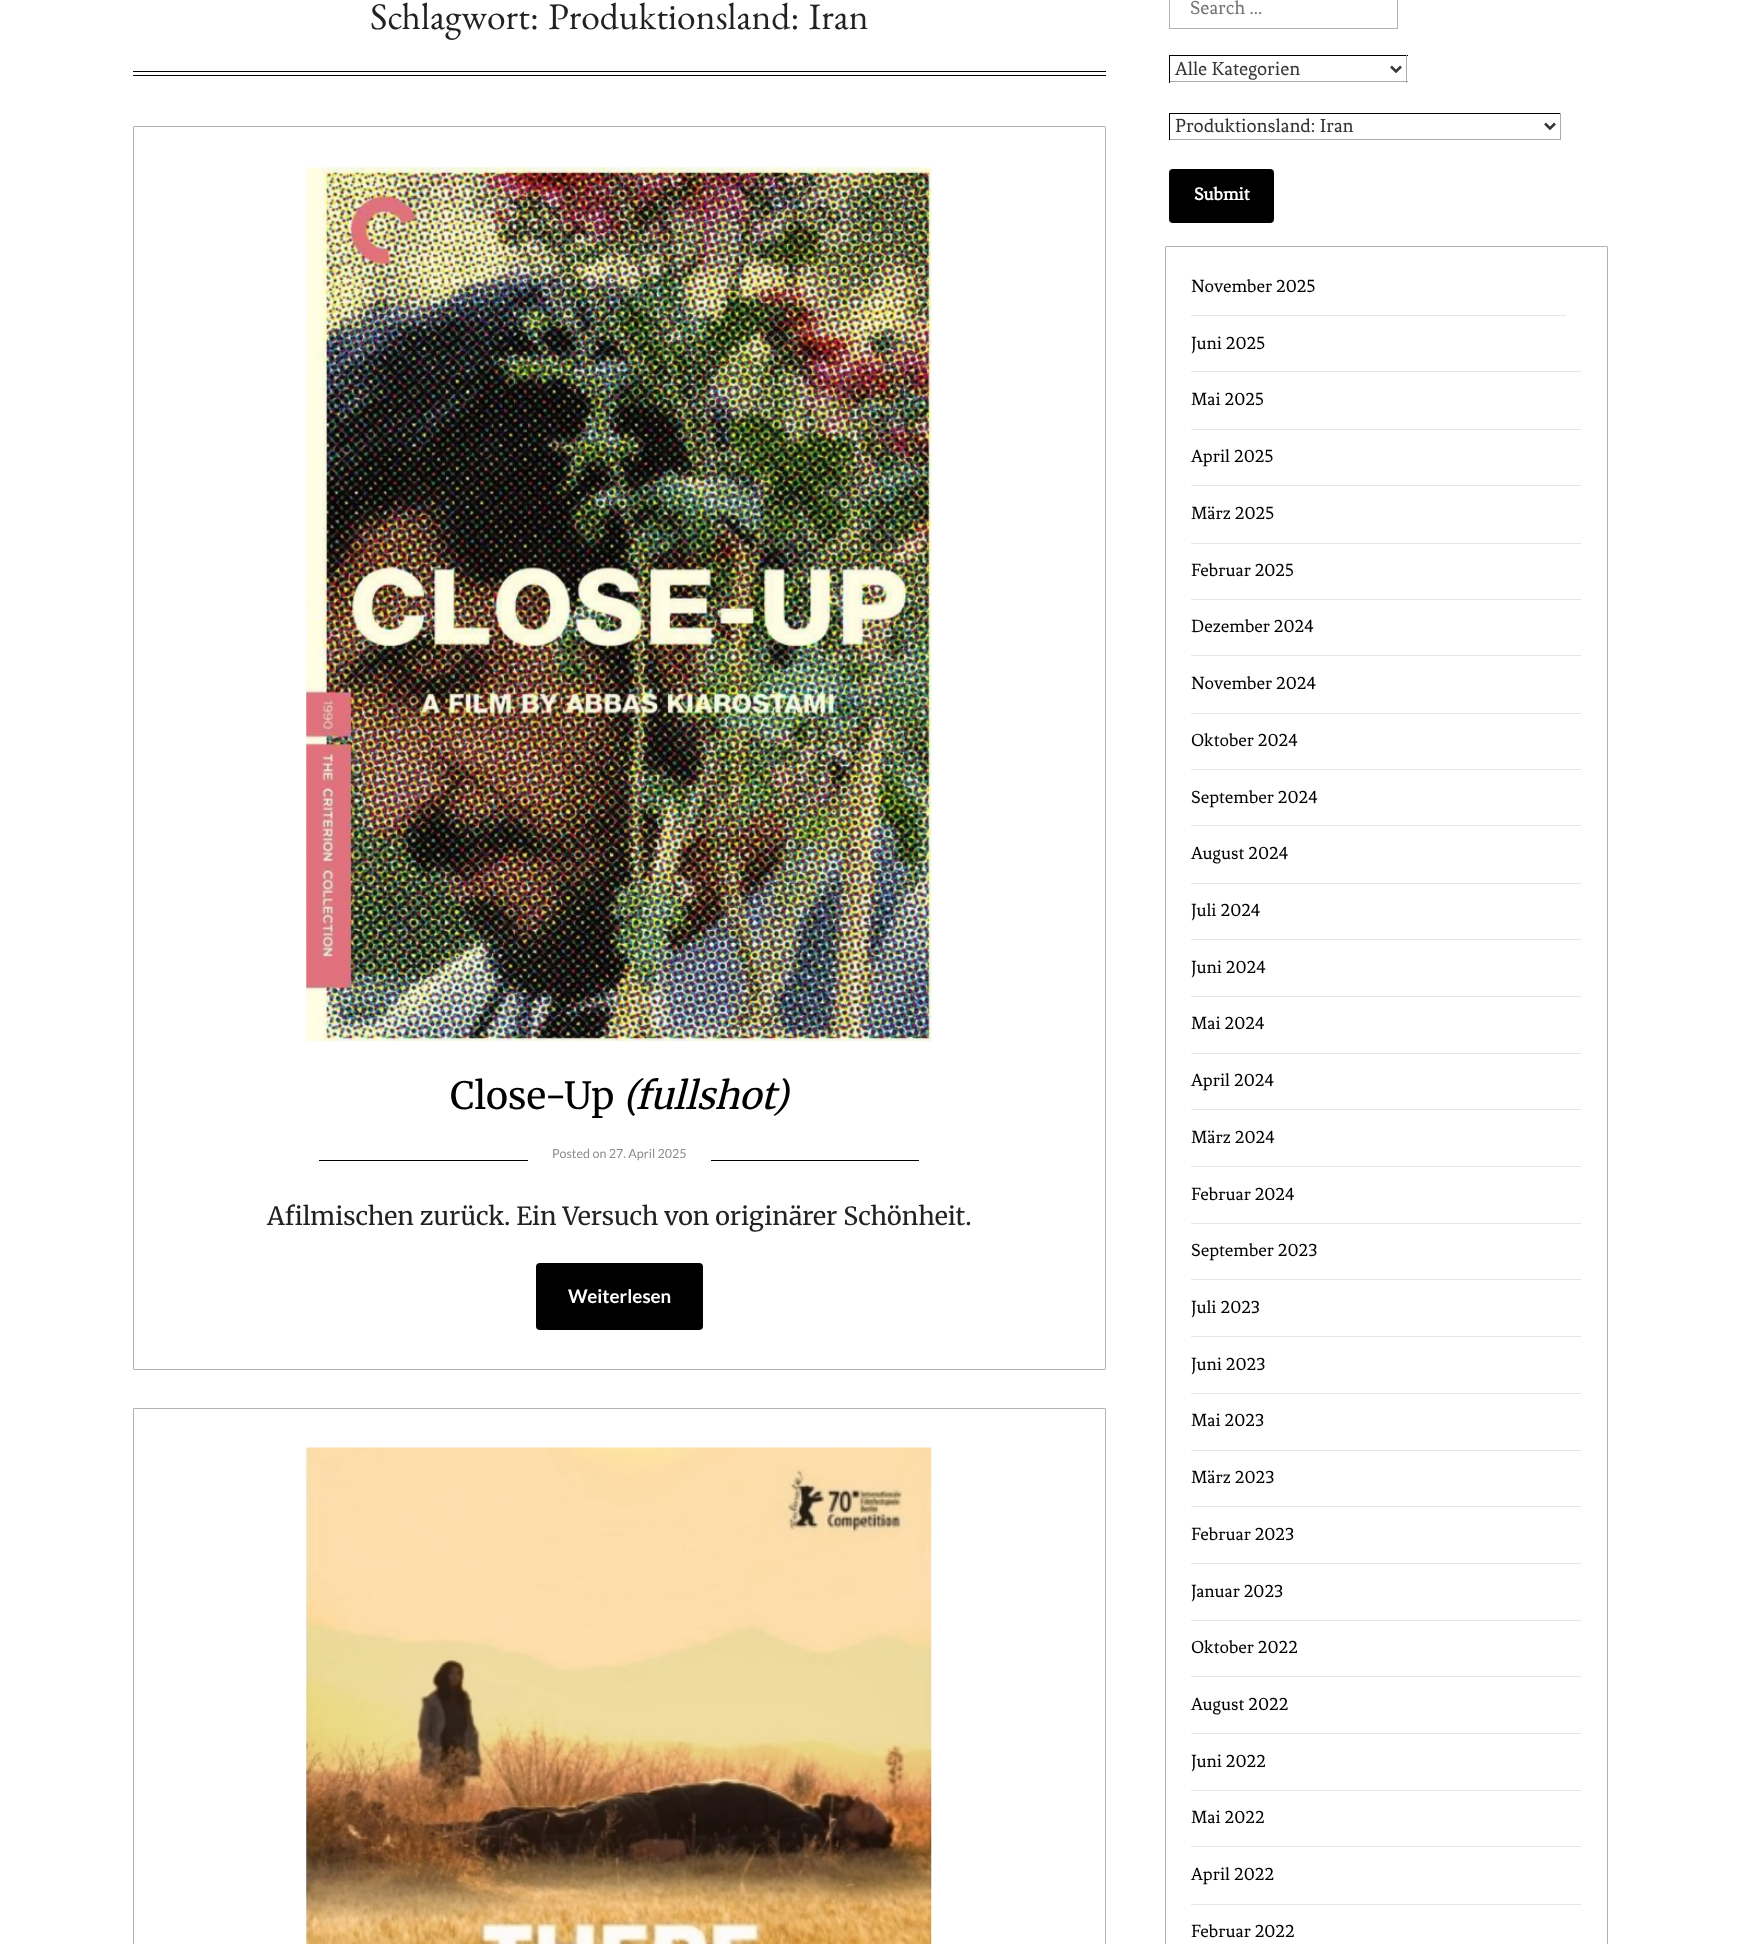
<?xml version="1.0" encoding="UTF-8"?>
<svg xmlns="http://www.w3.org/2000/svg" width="1739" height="1944">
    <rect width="100%" height="100%" fill="#FFFFFF"/>
    <rect x="133" y="71" width="973" height="1" fill="#000000"/>
    <rect x="133" y="75" width="973" height="1" fill="#000000"/>
    <text x="370" y="29" font-family="Benne" font-size="37.5" fill="#222222">Schlagwort: Produktionsland: Iran</text>
    <rect x="133.5" y="126.5" width="972" height="1243" rx="0.5" fill="none" stroke="#B2B2B2"/>
    <image x="306" y="167" width="626" height="875" href="img_01.png"/>
    <text x="450" y="1109" font-family="Merriweather" font-size="37.5" fill="#000000">Close-Up</text>
    <text x="623" y="1109" font-family="Merriweather" font-size="37.5" font-style="italic" fill="#000000">(fullshot)</text>
    <rect x="319" y="1160" width="600" height="1" fill="#000000"/>
    <rect x="528" y="1160" width="183" height="1" fill="#FFFFFF"/>
    <text x="552" y="1158" font-family="Lato" font-size="12.5" fill="#8C8C8C">Posted on 27. April 2025</text>
    <text x="267" y="1225" font-family="Merriweather" font-size="25" fill="#222222">Afilmischen zurück. Ein Versuch von originärer Schönheit.</text>
    <rect x="536" y="1263" width="167" height="67" rx="4" fill="#000000"/>
    <text x="568" y="1303" font-family="Lato" font-size="18.75" font-weight="700" fill="#FFFFFF">Weiterlesen</text>
    <rect x="133.5" y="1408.5" width="972" height="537" rx="0.5" fill="none" stroke="#B2B2B2"/>
    <image x="306" y="1447" width="626" height="497" href="img_02.png"/>
    <rect x="1169.5" y="-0.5" width="228" height="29" fill="none" stroke="#B2B2B2"/>
    <text x="1190" y="14" font-family="Fenix" font-size="20" fill="#757575">Search …</text>
    <rect x="1169" y="55" width="239" height="1" fill="#000000"/>
    <rect x="1406" y="55" width="1" height="28" fill="#AAAAAA"/>
    <rect x="1169" y="81" width="239" height="1" fill="#AAAAAA"/>
    <rect x="1169" y="55" width="1" height="28" fill="#000000"/>
    <path d="M 1391 66.5 L 1396 71.5 L 1401 66.5" fill="none" stroke="#3B3636" stroke-width="2.5"/>
    <text x="1175" y="75" font-family="Fenix" font-size="20" fill="#3B3636">Alle Kategorien</text>
    <rect x="1169" y="113" width="392" height="1" fill="#000000"/>
    <rect x="1560" y="113" width="1" height="27" fill="#AAAAAA"/>
    <rect x="1169" y="139" width="392" height="1" fill="#AAAAAA"/>
    <rect x="1169" y="113" width="1" height="27" fill="#000000"/>
    <path d="M 1545 123.5 L 1550 128.5 L 1555 123.5" fill="none" stroke="#333333" stroke-width="2.5"/>
    <text x="1175" y="132" font-family="Fenix" font-size="20" fill="#333333">Produktionsland: Iran</text>
    <rect x="1169" y="169" width="105" height="54" rx="4" fill="#000000"/>
    <text x="1194" y="200" font-family="Fenix" font-size="18.75" font-weight="700" fill="#FFFFFF">Submit</text>
    <rect x="1165.5" y="246.5" width="442" height="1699" rx="0.5" fill="none" stroke="#B2B2B2"/>
    <rect x="1191" y="315" width="375" height="1" fill="#E6E6E6"/>
    <text x="1191" y="292" font-family="Fenix" font-size="18.75" fill="#000000">November 2025</text>
    <rect x="1191" y="371" width="390" height="1" fill="#E6E6E6"/>
    <text x="1191" y="349" font-family="Fenix" font-size="18.75" fill="#000000">Juni 2025</text>
    <rect x="1191" y="429" width="390" height="1" fill="#E6E6E6"/>
    <text x="1191" y="405" font-family="Fenix" font-size="18.75" fill="#000000">Mai 2025</text>
    <rect x="1191" y="485" width="390" height="1" fill="#E6E6E6"/>
    <text x="1191" y="462" font-family="Fenix" font-size="18.75" fill="#000000">April 2025</text>
    <rect x="1191" y="543" width="390" height="1" fill="#E6E6E6"/>
    <text x="1191" y="519" font-family="Fenix" font-size="18.75" fill="#000000">März 2025</text>
    <rect x="1191" y="599" width="390" height="1" fill="#E6E6E6"/>
    <text x="1191" y="576" font-family="Fenix" font-size="18.75" fill="#000000">Februar 2025</text>
    <rect x="1191" y="655" width="390" height="1" fill="#E6E6E6"/>
    <text x="1191" y="632" font-family="Fenix" font-size="18.75" fill="#000000">Dezember 2024</text>
    <rect x="1191" y="713" width="390" height="1" fill="#E6E6E6"/>
    <text x="1191" y="689" font-family="Fenix" font-size="18.75" fill="#000000">November 2024</text>
    <rect x="1191" y="769" width="390" height="1" fill="#E6E6E6"/>
    <text x="1191" y="746" font-family="Fenix" font-size="18.75" fill="#000000">Oktober 2024</text>
    <rect x="1191" y="825" width="390" height="1" fill="#E6E6E6"/>
    <text x="1191" y="803" font-family="Fenix" font-size="18.75" fill="#000000">September 2024</text>
    <rect x="1191" y="883" width="390" height="1" fill="#E6E6E6"/>
    <text x="1191" y="859" font-family="Fenix" font-size="18.75" fill="#000000">August 2024</text>
    <rect x="1191" y="939" width="390" height="1" fill="#E6E6E6"/>
    <text x="1191" y="916" font-family="Fenix" font-size="18.75" fill="#000000">Juli 2024</text>
    <rect x="1191" y="996" width="390" height="1" fill="#E6E6E6"/>
    <text x="1191" y="973" font-family="Fenix" font-size="18.75" fill="#000000">Juni 2024</text>
    <rect x="1191" y="1053" width="390" height="1" fill="#E6E6E6"/>
    <text x="1191" y="1029" font-family="Fenix" font-size="18.75" fill="#000000">Mai 2024</text>
    <rect x="1191" y="1109" width="390" height="1" fill="#E6E6E6"/>
    <text x="1191" y="1086" font-family="Fenix" font-size="18.75" fill="#000000">April 2024</text>
    <rect x="1191" y="1166" width="390" height="1" fill="#E6E6E6"/>
    <text x="1191" y="1143" font-family="Fenix" font-size="18.75" fill="#000000">März 2024</text>
    <rect x="1191" y="1223" width="390" height="1" fill="#E6E6E6"/>
    <text x="1191" y="1200" font-family="Fenix" font-size="18.75" fill="#000000">Februar 2024</text>
    <rect x="1191" y="1279" width="390" height="1" fill="#E6E6E6"/>
    <text x="1191" y="1256" font-family="Fenix" font-size="18.75" fill="#000000">September 2023</text>
    <rect x="1191" y="1336" width="390" height="1" fill="#E6E6E6"/>
    <text x="1191" y="1313" font-family="Fenix" font-size="18.75" fill="#000000">Juli 2023</text>
    <rect x="1191" y="1393" width="390" height="1" fill="#E6E6E6"/>
    <text x="1191" y="1370" font-family="Fenix" font-size="18.75" fill="#000000">Juni 2023</text>
    <rect x="1191" y="1450" width="390" height="1" fill="#E6E6E6"/>
    <text x="1191" y="1426" font-family="Fenix" font-size="18.75" fill="#000000">Mai 2023</text>
    <rect x="1191" y="1506" width="390" height="1" fill="#E6E6E6"/>
    <text x="1191" y="1483" font-family="Fenix" font-size="18.75" fill="#000000">März 2023</text>
    <rect x="1191" y="1563" width="390" height="1" fill="#E6E6E6"/>
    <text x="1191" y="1540" font-family="Fenix" font-size="18.75" fill="#000000">Februar 2023</text>
    <rect x="1191" y="1620" width="390" height="1" fill="#E6E6E6"/>
    <text x="1191" y="1597" font-family="Fenix" font-size="18.75" fill="#000000">Januar 2023</text>
    <rect x="1191" y="1676" width="390" height="1" fill="#E6E6E6"/>
    <text x="1191" y="1653" font-family="Fenix" font-size="18.75" fill="#000000">Oktober 2022</text>
    <rect x="1191" y="1733" width="390" height="1" fill="#E6E6E6"/>
    <text x="1191" y="1710" font-family="Fenix" font-size="18.75" fill="#000000">August 2022</text>
    <rect x="1191" y="1790" width="390" height="1" fill="#E6E6E6"/>
    <text x="1191" y="1767" font-family="Fenix" font-size="18.75" fill="#000000">Juni 2022</text>
    <rect x="1191" y="1846" width="390" height="1" fill="#E6E6E6"/>
    <text x="1191" y="1823" font-family="Fenix" font-size="18.75" fill="#000000">Mai 2022</text>
    <rect x="1191" y="1904" width="390" height="1" fill="#E6E6E6"/>
    <text x="1191" y="1880" font-family="Fenix" font-size="18.75" fill="#000000">April 2022</text>
    <text x="1191" y="1937" font-family="Fenix" font-size="18.75" fill="#000000">Februar 2022</text>
</svg>
